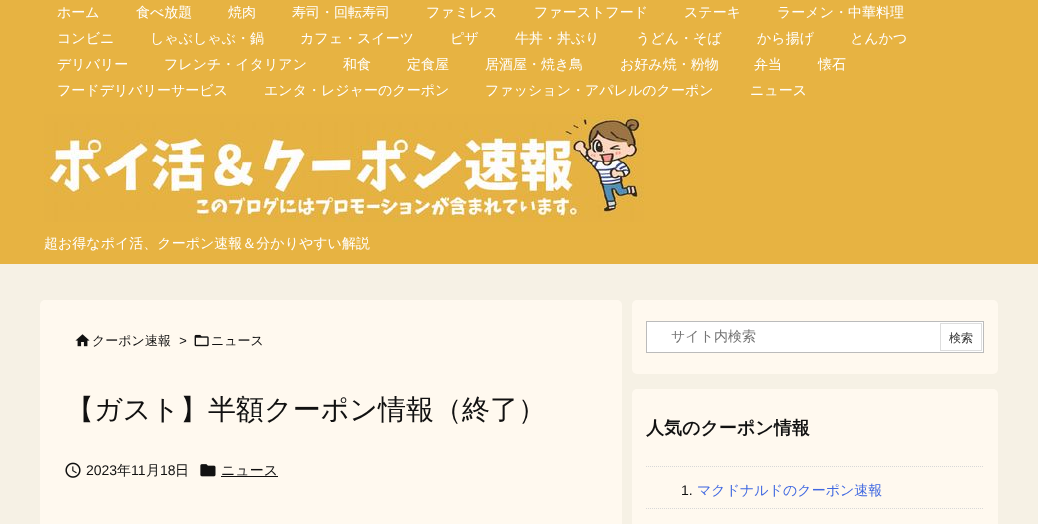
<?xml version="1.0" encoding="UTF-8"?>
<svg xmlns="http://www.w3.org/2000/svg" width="1038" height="524">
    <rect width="100%" height="100%" fill="#F6F1E5"/>
    <rect x="0" y="0" width="1038" height="264" fill="#E7B342"/>
    <text x="57" y="17" font-family="WenQuanYi Zen Hei" font-size="14" font-weight="500" fill="#FFFFFF">ホーム</text>
    <text x="136" y="17" font-family="WenQuanYi Zen Hei" font-size="14" font-weight="500" fill="#FFFFFF">食べ放題</text>
    <text x="228" y="17" font-family="WenQuanYi Zen Hei" font-size="14" font-weight="500" fill="#FFFFFF">焼肉</text>
    <text x="292" y="17" font-family="WenQuanYi Zen Hei" font-size="14" font-weight="500" fill="#FFFFFF">寿司・回転寿司</text>
    <text x="426" y="17" font-family="WenQuanYi Zen Hei" font-size="14" font-weight="500" fill="#FFFFFF">ファミレス</text>
    <text x="534" y="17" font-family="WenQuanYi Zen Hei" font-size="14" font-weight="500" fill="#FFFFFF">ファーストフード</text>
    <text x="684" y="17" font-family="WenQuanYi Zen Hei" font-size="14" font-weight="500" fill="#FFFFFF">ステーキ</text>
    <text x="777" y="17" font-family="WenQuanYi Zen Hei" font-size="14" font-weight="500" fill="#FFFFFF">ラーメン・中華料理</text>
    <text x="57" y="43" font-family="WenQuanYi Zen Hei" font-size="14" font-weight="500" fill="#FFFFFF">コンビニ</text>
    <text x="150" y="43" font-family="WenQuanYi Zen Hei" font-size="14" font-weight="500" fill="#FFFFFF">しゃぶしゃぶ・鍋</text>
    <text x="300" y="43" font-family="WenQuanYi Zen Hei" font-size="14" font-weight="500" fill="#FFFFFF">カフェ・スイーツ</text>
    <text x="450" y="43" font-family="WenQuanYi Zen Hei" font-size="14" font-weight="500" fill="#FFFFFF">ピザ</text>
    <text x="515" y="43" font-family="WenQuanYi Zen Hei" font-size="14" font-weight="500" fill="#FFFFFF">牛丼・丼ぶり</text>
    <text x="636" y="43" font-family="WenQuanYi Zen Hei" font-size="14" font-weight="500" fill="#FFFFFF">うどん・そば</text>
    <text x="757" y="43" font-family="WenQuanYi Zen Hei" font-size="14" font-weight="500" fill="#FFFFFF">から揚げ</text>
    <text x="850" y="43" font-family="WenQuanYi Zen Hei" font-size="14" font-weight="500" fill="#FFFFFF">とんかつ</text>
    <text x="57" y="69" font-family="WenQuanYi Zen Hei" font-size="14" font-weight="500" fill="#FFFFFF">デリバリー</text>
    <text x="164" y="69" font-family="WenQuanYi Zen Hei" font-size="14" font-weight="500" fill="#FFFFFF">フレンチ・イタリアン</text>
    <text x="343" y="69" font-family="WenQuanYi Zen Hei" font-size="14" font-weight="500" fill="#FFFFFF">和食</text>
    <text x="407" y="69" font-family="WenQuanYi Zen Hei" font-size="14" font-weight="500" fill="#FFFFFF">定食屋</text>
    <text x="485" y="69" font-family="WenQuanYi Zen Hei" font-size="14" font-weight="500" fill="#FFFFFF">居酒屋・焼き鳥</text>
    <text x="620" y="69" font-family="WenQuanYi Zen Hei" font-size="14" font-weight="500" fill="#FFFFFF">お好み焼・粉物</text>
    <text x="754" y="69" font-family="WenQuanYi Zen Hei" font-size="14" font-weight="500" fill="#FFFFFF">弁当</text>
    <text x="818" y="69" font-family="WenQuanYi Zen Hei" font-size="14" font-weight="500" fill="#FFFFFF">懐石</text>
    <text x="57" y="95" font-family="WenQuanYi Zen Hei" font-size="14" font-weight="500" fill="#FFFFFF">フードデリバリーサービス</text>
    <text x="264" y="95" font-family="WenQuanYi Zen Hei" font-size="14" font-weight="500" fill="#FFFFFF">エンタ・レジャーのクーポン</text>
    <text x="485" y="95" font-family="WenQuanYi Zen Hei" font-size="14" font-weight="500" fill="#FFFFFF">ファッション・アパレルのクーポン</text>
    <text x="750" y="95" font-family="WenQuanYi Zen Hei" font-size="14" font-weight="500" fill="#FFFFFF">ニュース</text>
    <image x="44" y="114" width="600" height="108" href="img_01.png"/>
    <text x="44" y="248" font-family="WenQuanYi Zen Hei" font-size="14" font-weight="500" fill="#FFFFFF">超お得なポイ活、クーポン速報＆分かりやすい解説</text>
    <rect x="40" y="300" width="582" height="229" rx="5" fill="#FFF9EF"/>
    <image x="75" y="334" width="15" height="13" href="img_02.png"/>
    <text x="92" y="345" font-family="WenQuanYi Zen Hei" font-size="13" font-weight="500" fill="#111111">クーポン速報</text>
    <text x="179" y="345" font-family="Liberation Sans" font-size="13" font-style="italic" fill="#111111">&gt;</text>
    <image x="194" y="334" width="15" height="13" href="img_03.png"/>
    <text x="211" y="345" font-family="WenQuanYi Zen Hei" font-size="13" font-weight="500" fill="#111111">ニュース</text>
    <text x="66" y="419" font-family="WenQuanYi Zen Hei" font-size="28" font-weight="500" fill="#111111">【ガスト】半額クーポン情報（終了）</text>
    <image x="65" y="462" width="16" height="16" href="img_04.png"/>
    <text x="86" y="475" font-family="Liberation Sans" font-size="14" fill="#111111">2023</text>
    <text x="117" y="475" font-family="WenQuanYi Zen Hei" font-size="14" font-weight="500" fill="#111111">年</text>
    <text x="131" y="475" font-family="Liberation Sans" font-size="14" fill="#111111">11</text>
    <text x="146" y="475" font-family="WenQuanYi Zen Hei" font-size="14" font-weight="500" fill="#111111">月</text>
    <text x="160" y="475" font-family="Liberation Sans" font-size="14" fill="#111111">18</text>
    <text x="175" y="475" font-family="WenQuanYi Zen Hei" font-size="14" font-weight="500" fill="#111111">日</text>
    <image x="200" y="464" width="16" height="13" href="img_05.png"/>
    <text x="221" y="475" font-family="WenQuanYi Zen Hei" font-size="14" font-weight="500" fill="#111111">ニュース</text>
    <rect x="221" y="476" width="57" height="1" fill="#111111"/>
    <rect x="632" y="300" width="366" height="74" rx="5" fill="#FFF9EF"/>
    <rect x="646.5" y="321.5" width="337" height="31" fill="#FFFFFF" stroke="#BBBBBB"/>
    <text x="671" y="341" font-family="WenQuanYi Zen Hei" font-size="14" font-weight="500" fill="#757575">サイト内検索</text>
    <rect x="940.5" y="323.5" width="41" height="27" fill="none" stroke="#DDDDDD"/>
    <text x="949" y="342" font-family="WenQuanYi Zen Hei" font-size="12" font-weight="500" fill="#333333">検索</text>
    <rect x="632" y="389" width="366" height="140" rx="5" fill="#FFF9EF"/>
    <text x="646" y="434" font-family="WenQuanYi Zen Hei" font-size="18" font-weight="700" fill="#111111">人気のクーポン情報</text>
    <path d="M 646 466.5 H 984" fill="none" stroke="#D8D8D8" stroke-dasharray="1 1"/>
    <text x="681" y="495" font-family="Liberation Sans" font-size="14" fill="#111111">1.</text>
    <text x="697" y="495" font-family="WenQuanYi Zen Hei" font-size="14" font-weight="500" fill="#4169E1">マクドナルドのクーポン速報</text>
    <path d="M 646 508.5 H 984" fill="none" stroke="#D8D8D8" stroke-dasharray="1 1"/>
</svg>
